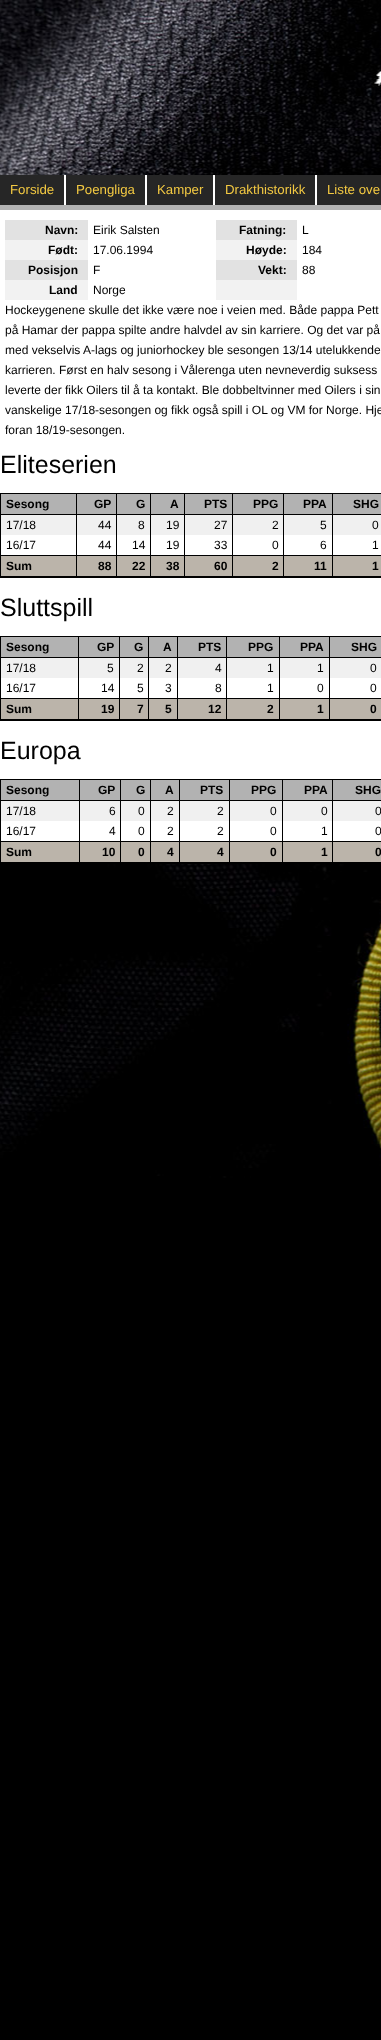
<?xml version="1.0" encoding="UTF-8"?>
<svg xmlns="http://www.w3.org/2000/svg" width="381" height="2040">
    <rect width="100%" height="100%" fill="#000000"/>
    <image x="0" y="0" width="381" height="1178" href="img_01.png"/>
    <rect x="0" y="210" width="381" height="631" fill="#FFFFFF"/>
    <rect x="0" y="205" width="381" height="5" fill="#B2B2B2"/>
    <rect x="0" y="175" width="64" height="30" fill="#262626"/>
    <rect x="64" y="175" width="2" height="30" fill="#FFFFFF"/>
    <text x="10" y="194" font-family="Liberation Sans" font-size="13.25" fill="#F3C942">Forside</text>
    <rect x="66" y="175" width="79" height="30" fill="#262626"/>
    <rect x="145" y="175" width="2" height="30" fill="#FFFFFF"/>
    <text x="76" y="194" font-family="Liberation Sans" font-size="13.25" fill="#F3C942">Poengliga</text>
    <rect x="147" y="175" width="66" height="30" fill="#262626"/>
    <rect x="213" y="175" width="2" height="30" fill="#FFFFFF"/>
    <text x="157" y="194" font-family="Liberation Sans" font-size="13.25" fill="#F3C942">Kamper</text>
    <rect x="215" y="175" width="100" height="30" fill="#262626"/>
    <rect x="315" y="175" width="2" height="30" fill="#FFFFFF"/>
    <text x="225" y="194" font-family="Liberation Sans" font-size="13.25" fill="#F3C942">Drakthistorikk</text>
    <rect x="317" y="175" width="64" height="30" fill="#262626"/>
    <text x="327" y="194" font-family="Liberation Sans" font-size="13.25" fill="#F3C942">Liste ove</text>
    <rect x="5" y="220" width="83" height="20" fill="#E2E2E2"/>
    <text x="45" y="234" font-family="Liberation Sans" font-size="12" font-weight="700" fill="#000000">Navn:</text>
    <text x="93" y="234" font-family="Liberation Sans" font-size="12" fill="#000000">Eirik Salsten</text>
    <rect x="216" y="220" width="81" height="20" fill="#E2E2E2"/>
    <text x="239" y="234" font-family="Liberation Sans" font-size="12" font-weight="700" fill="#000000">Fatning:</text>
    <text x="302" y="234" font-family="Liberation Sans" font-size="12" fill="#000000">L</text>
    <rect x="5" y="240" width="83" height="20" fill="#F2F2F2"/>
    <text x="48" y="254" font-family="Liberation Sans" font-size="12" font-weight="700" fill="#000000">Født:</text>
    <text x="93" y="254" font-family="Liberation Sans" font-size="12" fill="#000000">17.06.1994</text>
    <rect x="216" y="240" width="81" height="20" fill="#F2F2F2"/>
    <text x="246" y="254" font-family="Liberation Sans" font-size="12" font-weight="700" fill="#000000">Høyde:</text>
    <text x="302" y="254" font-family="Liberation Sans" font-size="12" fill="#000000">184</text>
    <rect x="5" y="260" width="83" height="20" fill="#E2E2E2"/>
    <text x="28" y="274" font-family="Liberation Sans" font-size="12" font-weight="700" fill="#000000">Posisjon</text>
    <text x="93" y="274" font-family="Liberation Sans" font-size="12" fill="#000000">F</text>
    <rect x="216" y="260" width="81" height="20" fill="#E2E2E2"/>
    <text x="258" y="274" font-family="Liberation Sans" font-size="12" font-weight="700" fill="#000000">Vekt:</text>
    <text x="302" y="274" font-family="Liberation Sans" font-size="12" fill="#000000">88</text>
    <rect x="5" y="280" width="83" height="20" fill="#F2F2F2"/>
    <text x="49" y="294" font-family="Liberation Sans" font-size="12" font-weight="700" fill="#000000">Land</text>
    <text x="93" y="294" font-family="Liberation Sans" font-size="12" fill="#000000">Norge</text>
    <rect x="216" y="280" width="81" height="20" fill="#F2F2F2"/>
    <text font-family="Liberation Sans" font-size="12" fill="#000000">
        <tspan x="5" y="314">Hockeygenene skulle det ikke være noe i veien med. Både pappa Pett</tspan>
        <tspan x="5" y="334">på Hamar der pappa spilte andre halvdel av sin karriere. Og det var på</tspan>
        <tspan x="5" y="354">med vekselvis A-lags og juniorhockey ble sesongen 13/14 utelukkende</tspan>
        <tspan x="5" y="374">karrieren. Først en halv sesong i Vålerenga uten nevneverdig suksess</tspan>
        <tspan x="5" y="394">leverte der fikk Oilers til å ta kontakt. Ble dobbeltvinner med Oilers i sin</tspan>
        <tspan x="5" y="414">vanskelige 17/18-sesongen og fikk også spill i OL og VM for Norge. Hje</tspan>
        <tspan x="5" y="434">foran 18/19-sesongen.</tspan>
    </text>
    <text x="0" y="473" font-family="Liberation Sans" font-size="25" fill="#000000">Eliteserien</text>
    <rect x="0.5" y="493.5" width="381" height="84" fill="none" stroke="#000000"/>
    <rect x="1" y="494" width="75" height="20" fill="#B2B2B2"/>
    <rect x="76" y="494" width="1" height="21" fill="#000000"/>
    <rect x="1" y="514" width="76" height="1" fill="#000000"/>
    <text x="6" y="508" font-family="Liberation Sans" font-size="12" font-weight="700" fill="#000000">Sesong</text>
    <rect x="77" y="494" width="39" height="20" fill="#B2B2B2"/>
    <rect x="116" y="494" width="1" height="21" fill="#000000"/>
    <rect x="77" y="514" width="40" height="1" fill="#000000"/>
    <text x="94" y="508" font-family="Liberation Sans" font-size="12" font-weight="700" fill="#000000">GP</text>
    <rect x="117" y="494" width="33" height="20" fill="#B2B2B2"/>
    <rect x="150" y="494" width="1" height="21" fill="#000000"/>
    <rect x="117" y="514" width="34" height="1" fill="#000000"/>
    <text x="136" y="508" font-family="Liberation Sans" font-size="12" font-weight="700" fill="#000000">G</text>
    <rect x="151" y="494" width="33" height="20" fill="#B2B2B2"/>
    <rect x="184" y="494" width="1" height="21" fill="#000000"/>
    <rect x="151" y="514" width="34" height="1" fill="#000000"/>
    <text x="170" y="508" font-family="Liberation Sans" font-size="12" font-weight="700" fill="#000000">A</text>
    <rect x="185" y="494" width="47" height="20" fill="#B2B2B2"/>
    <rect x="232" y="494" width="1" height="21" fill="#000000"/>
    <rect x="185" y="514" width="48" height="1" fill="#000000"/>
    <text x="204" y="508" font-family="Liberation Sans" font-size="12" font-weight="700" fill="#000000">PTS</text>
    <rect x="233" y="494" width="50" height="20" fill="#B2B2B2"/>
    <rect x="283" y="494" width="1" height="21" fill="#000000"/>
    <rect x="233" y="514" width="51" height="1" fill="#000000"/>
    <text x="253" y="508" font-family="Liberation Sans" font-size="12" font-weight="700" fill="#000000">PPG</text>
    <rect x="284" y="494" width="48" height="20" fill="#B2B2B2"/>
    <rect x="332" y="494" width="1" height="21" fill="#000000"/>
    <rect x="284" y="514" width="97" height="1" fill="#000000"/>
    <text x="303" y="508" font-family="Liberation Sans" font-size="12" font-weight="700" fill="#000000">PPA</text>
    <rect x="333" y="494" width="48" height="20" fill="#B2B2B2"/>
    <text x="353" y="508" font-family="Liberation Sans" font-size="12" font-weight="700" fill="#000000">SHG</text>
    <rect x="1" y="515" width="380" height="20" fill="#F0F0F0"/>
    <rect x="76" y="515" width="1" height="40" fill="#000000"/>
    <text x="6" y="529" font-family="Liberation Sans" font-size="12" fill="#000000">17/18</text>
    <rect x="116" y="515" width="1" height="40" fill="#000000"/>
    <text x="98" y="529" font-family="Liberation Sans" font-size="12" fill="#000000">44</text>
    <rect x="150" y="515" width="1" height="40" fill="#000000"/>
    <text x="138" y="529" font-family="Liberation Sans" font-size="12" fill="#000000">8</text>
    <rect x="184" y="515" width="1" height="40" fill="#000000"/>
    <text x="166" y="529" font-family="Liberation Sans" font-size="12" fill="#000000">19</text>
    <rect x="232" y="515" width="1" height="40" fill="#000000"/>
    <text x="214" y="529" font-family="Liberation Sans" font-size="12" fill="#000000">27</text>
    <rect x="283" y="515" width="1" height="40" fill="#000000"/>
    <text x="272" y="529" font-family="Liberation Sans" font-size="12" fill="#000000">2</text>
    <rect x="332" y="515" width="1" height="40" fill="#000000"/>
    <text x="320" y="529" font-family="Liberation Sans" font-size="12" fill="#000000">5</text>
    <text x="372" y="529" font-family="Liberation Sans" font-size="12" fill="#000000">0</text>
    <text x="6" y="549" font-family="Liberation Sans" font-size="12" fill="#000000">16/17</text>
    <text x="98" y="549" font-family="Liberation Sans" font-size="12" fill="#000000">44</text>
    <text x="132" y="549" font-family="Liberation Sans" font-size="12" fill="#000000">14</text>
    <text x="166" y="549" font-family="Liberation Sans" font-size="12" fill="#000000">19</text>
    <text x="214" y="549" font-family="Liberation Sans" font-size="12" fill="#000000">33</text>
    <text x="272" y="549" font-family="Liberation Sans" font-size="12" fill="#000000">0</text>
    <text x="320" y="549" font-family="Liberation Sans" font-size="12" fill="#000000">6</text>
    <text x="372" y="549" font-family="Liberation Sans" font-size="12" fill="#000000">1</text>
    <rect x="1" y="556" width="75" height="20" fill="#BBB4AA"/>
    <rect x="1" y="555" width="380" height="1" fill="#000000"/>
    <rect x="76" y="555" width="1" height="22" fill="#000000"/>
    <rect x="1" y="576" width="76" height="1" fill="#000000"/>
    <text x="6" y="570" font-family="Liberation Sans" font-size="12" font-weight="700" fill="#000000">Sum</text>
    <rect x="77" y="556" width="39" height="20" fill="#BBB4AA"/>
    <rect x="116" y="555" width="1" height="22" fill="#000000"/>
    <rect x="77" y="576" width="40" height="1" fill="#000000"/>
    <text x="98" y="570" font-family="Liberation Sans" font-size="12" font-weight="700" fill="#000000">88</text>
    <rect x="117" y="556" width="33" height="20" fill="#BBB4AA"/>
    <rect x="150" y="555" width="1" height="22" fill="#000000"/>
    <rect x="117" y="576" width="34" height="1" fill="#000000"/>
    <text x="132" y="570" font-family="Liberation Sans" font-size="12" font-weight="700" fill="#000000">22</text>
    <rect x="151" y="556" width="33" height="20" fill="#BBB4AA"/>
    <rect x="184" y="555" width="1" height="22" fill="#000000"/>
    <rect x="151" y="576" width="34" height="1" fill="#000000"/>
    <text x="166" y="570" font-family="Liberation Sans" font-size="12" font-weight="700" fill="#000000">38</text>
    <rect x="185" y="556" width="47" height="20" fill="#BBB4AA"/>
    <rect x="232" y="555" width="1" height="22" fill="#000000"/>
    <rect x="185" y="576" width="48" height="1" fill="#000000"/>
    <text x="214" y="570" font-family="Liberation Sans" font-size="12" font-weight="700" fill="#000000">60</text>
    <rect x="233" y="556" width="50" height="20" fill="#BBB4AA"/>
    <rect x="283" y="555" width="1" height="22" fill="#000000"/>
    <rect x="233" y="576" width="51" height="1" fill="#000000"/>
    <text x="272" y="570" font-family="Liberation Sans" font-size="12" font-weight="700" fill="#000000">2</text>
    <rect x="284" y="556" width="48" height="20" fill="#BBB4AA"/>
    <rect x="332" y="555" width="1" height="22" fill="#000000"/>
    <rect x="284" y="576" width="97" height="1" fill="#000000"/>
    <text x="314" y="570" font-family="Liberation Sans" font-size="12" font-weight="700" fill="#000000">11</text>
    <rect x="333" y="556" width="48" height="20" fill="#BBB4AA"/>
    <text x="372" y="570" font-family="Liberation Sans" font-size="12" font-weight="700" fill="#000000">1</text>
    <text x="0" y="616" font-family="Liberation Sans" font-size="25" fill="#000000">Sluttspill</text>
    <rect x="0.5" y="636.5" width="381" height="84" fill="none" stroke="#000000"/>
    <rect x="1" y="637" width="77" height="20" fill="#B2B2B2"/>
    <rect x="78" y="637" width="1" height="21" fill="#000000"/>
    <rect x="1" y="657" width="78" height="1" fill="#000000"/>
    <text x="6" y="651" font-family="Liberation Sans" font-size="12" font-weight="700" fill="#000000">Sesong</text>
    <rect x="79" y="637" width="40" height="20" fill="#B2B2B2"/>
    <rect x="119" y="637" width="1" height="21" fill="#000000"/>
    <rect x="79" y="657" width="41" height="1" fill="#000000"/>
    <text x="97" y="651" font-family="Liberation Sans" font-size="12" font-weight="700" fill="#000000">GP</text>
    <rect x="120" y="637" width="28" height="20" fill="#B2B2B2"/>
    <rect x="148" y="637" width="1" height="21" fill="#000000"/>
    <rect x="120" y="657" width="29" height="1" fill="#000000"/>
    <text x="134" y="651" font-family="Liberation Sans" font-size="12" font-weight="700" fill="#000000">G</text>
    <rect x="149" y="637" width="28" height="20" fill="#B2B2B2"/>
    <rect x="177" y="637" width="1" height="21" fill="#000000"/>
    <rect x="149" y="657" width="29" height="1" fill="#000000"/>
    <text x="163" y="651" font-family="Liberation Sans" font-size="12" font-weight="700" fill="#000000">A</text>
    <rect x="178" y="637" width="48" height="20" fill="#B2B2B2"/>
    <rect x="226" y="637" width="1" height="21" fill="#000000"/>
    <rect x="178" y="657" width="49" height="1" fill="#000000"/>
    <text x="198" y="651" font-family="Liberation Sans" font-size="12" font-weight="700" fill="#000000">PTS</text>
    <rect x="227" y="637" width="52" height="20" fill="#B2B2B2"/>
    <rect x="279" y="637" width="1" height="21" fill="#000000"/>
    <rect x="227" y="657" width="53" height="1" fill="#000000"/>
    <text x="248" y="651" font-family="Liberation Sans" font-size="12" font-weight="700" fill="#000000">PPG</text>
    <rect x="280" y="637" width="49" height="20" fill="#B2B2B2"/>
    <rect x="329" y="637" width="1" height="21" fill="#000000"/>
    <rect x="280" y="657" width="101" height="1" fill="#000000"/>
    <text x="300" y="651" font-family="Liberation Sans" font-size="12" font-weight="700" fill="#000000">PPA</text>
    <rect x="330" y="637" width="51" height="20" fill="#B2B2B2"/>
    <text x="351" y="651" font-family="Liberation Sans" font-size="12" font-weight="700" fill="#000000">SHG</text>
    <rect x="1" y="658" width="380" height="20" fill="#F0F0F0"/>
    <rect x="78" y="658" width="1" height="40" fill="#000000"/>
    <text x="6" y="672" font-family="Liberation Sans" font-size="12" fill="#000000">17/18</text>
    <rect x="119" y="658" width="1" height="40" fill="#000000"/>
    <text x="107" y="672" font-family="Liberation Sans" font-size="12" fill="#000000">5</text>
    <rect x="148" y="658" width="1" height="40" fill="#000000"/>
    <text x="137" y="672" font-family="Liberation Sans" font-size="12" fill="#000000">2</text>
    <rect x="177" y="658" width="1" height="40" fill="#000000"/>
    <text x="165" y="672" font-family="Liberation Sans" font-size="12" fill="#000000">2</text>
    <rect x="226" y="658" width="1" height="40" fill="#000000"/>
    <text x="215" y="672" font-family="Liberation Sans" font-size="12" fill="#000000">4</text>
    <rect x="279" y="658" width="1" height="40" fill="#000000"/>
    <text x="267" y="672" font-family="Liberation Sans" font-size="12" fill="#000000">1</text>
    <rect x="329" y="658" width="1" height="40" fill="#000000"/>
    <text x="317" y="672" font-family="Liberation Sans" font-size="12" fill="#000000">1</text>
    <text x="370" y="672" font-family="Liberation Sans" font-size="12" fill="#000000">0</text>
    <text x="6" y="692" font-family="Liberation Sans" font-size="12" fill="#000000">16/17</text>
    <text x="101" y="692" font-family="Liberation Sans" font-size="12" fill="#000000">14</text>
    <text x="137" y="692" font-family="Liberation Sans" font-size="12" fill="#000000">5</text>
    <text x="165" y="692" font-family="Liberation Sans" font-size="12" fill="#000000">3</text>
    <text x="215" y="692" font-family="Liberation Sans" font-size="12" fill="#000000">8</text>
    <text x="267" y="692" font-family="Liberation Sans" font-size="12" fill="#000000">1</text>
    <text x="317" y="692" font-family="Liberation Sans" font-size="12" fill="#000000">0</text>
    <text x="370" y="692" font-family="Liberation Sans" font-size="12" fill="#000000">0</text>
    <rect x="1" y="699" width="77" height="20" fill="#BBB4AA"/>
    <rect x="1" y="698" width="380" height="1" fill="#000000"/>
    <rect x="78" y="698" width="1" height="22" fill="#000000"/>
    <rect x="1" y="719" width="78" height="1" fill="#000000"/>
    <text x="6" y="713" font-family="Liberation Sans" font-size="12" font-weight="700" fill="#000000">Sum</text>
    <rect x="79" y="699" width="40" height="20" fill="#BBB4AA"/>
    <rect x="119" y="698" width="1" height="22" fill="#000000"/>
    <rect x="79" y="719" width="41" height="1" fill="#000000"/>
    <text x="101" y="713" font-family="Liberation Sans" font-size="12" font-weight="700" fill="#000000">19</text>
    <rect x="120" y="699" width="28" height="20" fill="#BBB4AA"/>
    <rect x="148" y="698" width="1" height="22" fill="#000000"/>
    <rect x="120" y="719" width="29" height="1" fill="#000000"/>
    <text x="137" y="713" font-family="Liberation Sans" font-size="12" font-weight="700" fill="#000000">7</text>
    <rect x="149" y="699" width="28" height="20" fill="#BBB4AA"/>
    <rect x="177" y="698" width="1" height="22" fill="#000000"/>
    <rect x="149" y="719" width="29" height="1" fill="#000000"/>
    <text x="165" y="713" font-family="Liberation Sans" font-size="12" font-weight="700" fill="#000000">5</text>
    <rect x="178" y="699" width="48" height="20" fill="#BBB4AA"/>
    <rect x="226" y="698" width="1" height="22" fill="#000000"/>
    <rect x="178" y="719" width="49" height="1" fill="#000000"/>
    <text x="208" y="713" font-family="Liberation Sans" font-size="12" font-weight="700" fill="#000000">12</text>
    <rect x="227" y="699" width="52" height="20" fill="#BBB4AA"/>
    <rect x="279" y="698" width="1" height="22" fill="#000000"/>
    <rect x="227" y="719" width="53" height="1" fill="#000000"/>
    <text x="267" y="713" font-family="Liberation Sans" font-size="12" font-weight="700" fill="#000000">2</text>
    <rect x="280" y="699" width="49" height="20" fill="#BBB4AA"/>
    <rect x="329" y="698" width="1" height="22" fill="#000000"/>
    <rect x="280" y="719" width="101" height="1" fill="#000000"/>
    <text x="317" y="713" font-family="Liberation Sans" font-size="12" font-weight="700" fill="#000000">1</text>
    <rect x="330" y="699" width="51" height="20" fill="#BBB4AA"/>
    <text x="370" y="713" font-family="Liberation Sans" font-size="12" font-weight="700" fill="#000000">0</text>
    <text x="0" y="759" font-family="Liberation Sans" font-size="25" fill="#000000">Europa</text>
    <rect x="0.5" y="779.5" width="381" height="84" fill="none" stroke="#000000"/>
    <rect x="1" y="780" width="78" height="20" fill="#B2B2B2"/>
    <rect x="79" y="780" width="1" height="21" fill="#000000"/>
    <rect x="1" y="800" width="79" height="1" fill="#000000"/>
    <text x="6" y="794" font-family="Liberation Sans" font-size="12" font-weight="700" fill="#000000">Sesong</text>
    <rect x="80" y="780" width="40" height="20" fill="#B2B2B2"/>
    <rect x="120" y="780" width="1" height="21" fill="#000000"/>
    <rect x="80" y="800" width="41" height="1" fill="#000000"/>
    <text x="98" y="794" font-family="Liberation Sans" font-size="12" font-weight="700" fill="#000000">GP</text>
    <rect x="121" y="780" width="29" height="20" fill="#B2B2B2"/>
    <rect x="150" y="780" width="1" height="21" fill="#000000"/>
    <rect x="121" y="800" width="30" height="1" fill="#000000"/>
    <text x="136" y="794" font-family="Liberation Sans" font-size="12" font-weight="700" fill="#000000">G</text>
    <rect x="151" y="780" width="28" height="20" fill="#B2B2B2"/>
    <rect x="179" y="780" width="1" height="21" fill="#000000"/>
    <rect x="151" y="800" width="29" height="1" fill="#000000"/>
    <text x="165" y="794" font-family="Liberation Sans" font-size="12" font-weight="700" fill="#000000">A</text>
    <rect x="180" y="780" width="49" height="20" fill="#B2B2B2"/>
    <rect x="229" y="780" width="1" height="21" fill="#000000"/>
    <rect x="180" y="800" width="50" height="1" fill="#000000"/>
    <text x="200" y="794" font-family="Liberation Sans" font-size="12" font-weight="700" fill="#000000">PTS</text>
    <rect x="230" y="780" width="52" height="20" fill="#B2B2B2"/>
    <rect x="282" y="780" width="1" height="21" fill="#000000"/>
    <rect x="230" y="800" width="53" height="1" fill="#000000"/>
    <text x="251" y="794" font-family="Liberation Sans" font-size="12" font-weight="700" fill="#000000">PPG</text>
    <rect x="283" y="780" width="49" height="20" fill="#B2B2B2"/>
    <rect x="332" y="780" width="1" height="21" fill="#000000"/>
    <rect x="283" y="800" width="98" height="1" fill="#000000"/>
    <text x="304" y="794" font-family="Liberation Sans" font-size="12" font-weight="700" fill="#000000">PPA</text>
    <rect x="333" y="780" width="48" height="20" fill="#B2B2B2"/>
    <text x="355" y="794" font-family="Liberation Sans" font-size="12" font-weight="700" fill="#000000">SHG</text>
    <rect x="1" y="801" width="380" height="20" fill="#F0F0F0"/>
    <rect x="79" y="801" width="1" height="40" fill="#000000"/>
    <text x="6" y="815" font-family="Liberation Sans" font-size="12" fill="#000000">17/18</text>
    <rect x="120" y="801" width="1" height="40" fill="#000000"/>
    <text x="109" y="815" font-family="Liberation Sans" font-size="12" fill="#000000">6</text>
    <rect x="150" y="801" width="1" height="40" fill="#000000"/>
    <text x="138" y="815" font-family="Liberation Sans" font-size="12" fill="#000000">0</text>
    <rect x="179" y="801" width="1" height="40" fill="#000000"/>
    <text x="167" y="815" font-family="Liberation Sans" font-size="12" fill="#000000">2</text>
    <rect x="229" y="801" width="1" height="40" fill="#000000"/>
    <text x="217" y="815" font-family="Liberation Sans" font-size="12" fill="#000000">2</text>
    <rect x="282" y="801" width="1" height="40" fill="#000000"/>
    <text x="270" y="815" font-family="Liberation Sans" font-size="12" fill="#000000">0</text>
    <rect x="332" y="801" width="1" height="62" fill="#000000"/>
    <text x="321" y="815" font-family="Liberation Sans" font-size="12" fill="#000000">0</text>
    <text x="375" y="815" font-family="Liberation Sans" font-size="12" fill="#000000">0</text>
    <text x="6" y="835" font-family="Liberation Sans" font-size="12" fill="#000000">16/17</text>
    <text x="109" y="835" font-family="Liberation Sans" font-size="12" fill="#000000">4</text>
    <text x="138" y="835" font-family="Liberation Sans" font-size="12" fill="#000000">0</text>
    <text x="167" y="835" font-family="Liberation Sans" font-size="12" fill="#000000">2</text>
    <text x="217" y="835" font-family="Liberation Sans" font-size="12" fill="#000000">2</text>
    <text x="270" y="835" font-family="Liberation Sans" font-size="12" fill="#000000">0</text>
    <text x="321" y="835" font-family="Liberation Sans" font-size="12" fill="#000000">1</text>
    <text x="375" y="835" font-family="Liberation Sans" font-size="12" fill="#000000">0</text>
    <rect x="1" y="842" width="78" height="20" fill="#BBB4AA"/>
    <text x="6" y="856" font-family="Liberation Sans" font-size="12" font-weight="700" fill="#000000">Sum</text>
    <rect x="80" y="842" width="40" height="20" fill="#BBB4AA"/>
    <text x="102" y="856" font-family="Liberation Sans" font-size="12" font-weight="700" fill="#000000">10</text>
    <rect x="121" y="842" width="29" height="20" fill="#BBB4AA"/>
    <text x="138" y="856" font-family="Liberation Sans" font-size="12" font-weight="700" fill="#000000">0</text>
    <rect x="151" y="842" width="28" height="20" fill="#BBB4AA"/>
    <rect x="160" y="841" width="70" height="1" fill="#000000"/>
    <rect x="179" y="841" width="1" height="22" fill="#000000"/>
    <rect x="151" y="862" width="29" height="1" fill="#000000"/>
    <text x="167" y="856" font-family="Liberation Sans" font-size="12" font-weight="700" fill="#000000">4</text>
    <rect x="180" y="842" width="49" height="20" fill="#BBB4AA"/>
    <rect x="229" y="856" width="1" height="7" fill="#000000"/>
    <rect x="180" y="862" width="62" height="1" fill="#000000"/>
    <text x="217" y="856" font-family="Liberation Sans" font-size="12" font-weight="700" fill="#000000">4</text>
    <rect x="230" y="842" width="52" height="20" fill="#BBB4AA"/>
    <text x="270" y="856" font-family="Liberation Sans" font-size="12" font-weight="700" fill="#000000">0</text>
    <rect x="283" y="842" width="49" height="20" fill="#BBB4AA"/>
    <rect x="316" y="862" width="26" height="1" fill="#000000"/>
    <text x="321" y="856" font-family="Liberation Sans" font-size="12" font-weight="700" fill="#000000">1</text>
    <rect x="333" y="842" width="48" height="20" fill="#BBB4AA"/>
    <rect x="364" y="841" width="4" height="1" fill="#000000"/>
    <text x="375" y="856" font-family="Liberation Sans" font-size="12" font-weight="700" fill="#000000">0</text>
</svg>
